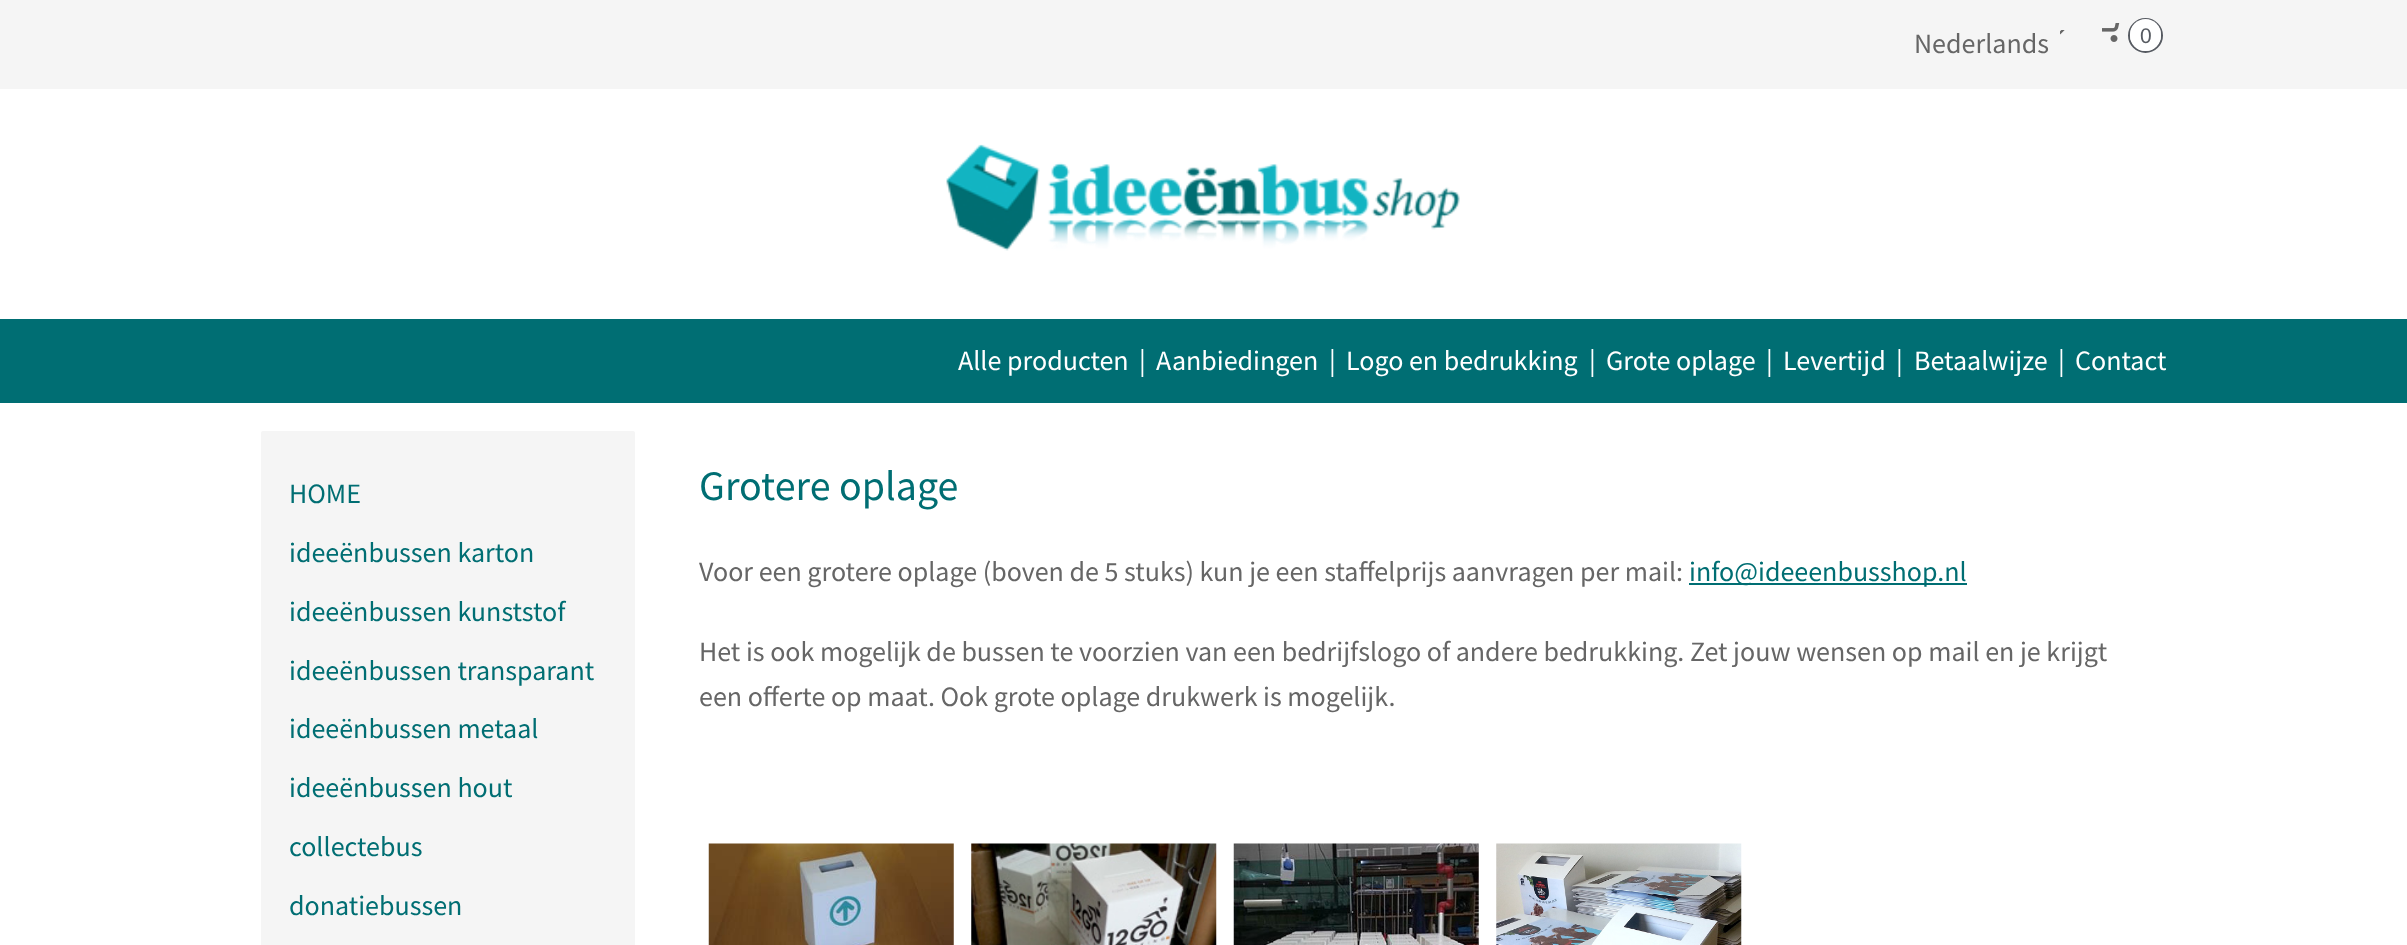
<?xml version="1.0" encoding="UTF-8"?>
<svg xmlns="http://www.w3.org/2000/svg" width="2407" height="945">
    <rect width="100%" height="100%" fill="#FFFFFF"/>
    <rect x="0" y="0" width="2407" height="89" fill="#F5F5F5"/>
    <image x="2060" y="30" width="5" height="5" href="img_01.png"/>
    <text x="1914" y="53" font-family="Source Sans Pro" font-size="28" fill="#666666">Nederlands</text>
    <image x="2102" y="23" width="18" height="19" href="img_02.png"/>
    <circle cx="2145.5" cy="35.5" r="16.5" fill="none" stroke="#575B62" stroke-width="2"/>
    <rect x="2130" y="19" width="31" height="32" rx="15.5" fill="#FFFFFF"/>
    <text x="2140" y="43" font-family="Liberation Sans" font-size="21" fill="#575B62">0</text>
    <image x="946" y="144" width="514" height="107" href="img_03.png"/>
    <rect x="0" y="319" width="2407" height="84" fill="#006E73"/>
    <text x="958" y="370" font-family="Source Sans Pro" font-size="28" fill="#FFFFFF">Alle producten</text>
    <text x="1139" y="370" font-family="Source Sans Pro" font-size="28" fill="#FFFFFF">|</text>
    <text x="1156" y="370" font-family="Source Sans Pro" font-size="28" fill="#FFFFFF">Aanbiedingen</text>
    <text x="1329" y="370" font-family="Source Sans Pro" font-size="28" fill="#FFFFFF">|</text>
    <text x="1346" y="370" font-family="Source Sans Pro" font-size="28" fill="#FFFFFF">Logo en bedrukking</text>
    <text x="1589" y="370" font-family="Source Sans Pro" font-size="28" fill="#FFFFFF">|</text>
    <text x="1606" y="370" font-family="Source Sans Pro" font-size="28" fill="#FFFFFF">Grote oplage</text>
    <text x="1766" y="370" font-family="Source Sans Pro" font-size="28" fill="#FFFFFF">|</text>
    <text x="1783" y="370" font-family="Source Sans Pro" font-size="28" fill="#FFFFFF">Levertijd</text>
    <text x="1896" y="370" font-family="Source Sans Pro" font-size="28" fill="#FFFFFF">|</text>
    <text x="1914" y="370" font-family="Source Sans Pro" font-size="28" fill="#FFFFFF">Betaalwijze</text>
    <text x="2058" y="370" font-family="Source Sans Pro" font-size="28" fill="#FFFFFF">|</text>
    <text x="2075" y="370" font-family="Source Sans Pro" font-size="28" fill="#FFFFFF">Contact</text>
    <rect x="260" y="430" width="376" height="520" rx="3" fill="#F5F5F5" stroke="#FFFFFF" stroke-width="2"/>
    <text x="289" y="503" font-family="Source Sans Pro" font-size="28" fill="#006E73">HOME</text>
    <text x="289" y="562" font-family="Source Sans Pro" font-size="28" fill="#006E73">ideeënbussen karton</text>
    <text x="289" y="621" font-family="Source Sans Pro" font-size="28" fill="#006E73">ideeënbussen kunststof</text>
    <text x="289" y="680" font-family="Source Sans Pro" font-size="28" fill="#006E73">ideeënbussen transparant</text>
    <text x="289" y="738" font-family="Source Sans Pro" font-size="28" fill="#006E73">ideeënbussen metaal</text>
    <text x="289" y="797" font-family="Source Sans Pro" font-size="28" fill="#006E73">ideeënbussen hout</text>
    <text x="289" y="856" font-family="Source Sans Pro" font-size="28" fill="#006E73">collectebus</text>
    <text x="289" y="915" font-family="Source Sans Pro" font-size="28" fill="#006E73">donatiebussen</text>
    <text x="699" y="500" font-family="Source Sans Pro" font-size="42" fill="#006E73">Grotere oplage</text>
    <text x="699" y="581" font-family="Source Sans Pro" font-size="28" fill="#666666">Voor een grotere oplage (boven de 5 stuks) kun je een staffelprijs aanvragen per mail:</text>
    <rect x="1689" y="583" width="278" height="2" fill="#006E73"/>
    <text x="1689" y="581" font-family="Source Sans Pro" font-size="28" fill="#006E73">info@ideeenbusshop.nl</text>
    <text font-family="Source Sans Pro" font-size="28" fill="#666666">
        <tspan x="699" y="661">Het is ook mogelijk de bussen te voorzien van een bedrijfslogo of andere bedrukking. Zet jouw wensen op mail en je krijgt</tspan>
        <tspan x="699" y="706">een offerte op maat. Ook grote oplage drukwerk is mogelijk.</tspan>
    </text>
    <image x="708" y="843" width="246" height="102" href="img_04.png"/>
    <image x="971" y="843" width="246" height="102" href="img_05.png"/>
    <image x="1233" y="843" width="246" height="102" href="img_06.png"/>
    <image x="1496" y="843" width="246" height="102" href="img_07.png"/>
</svg>
